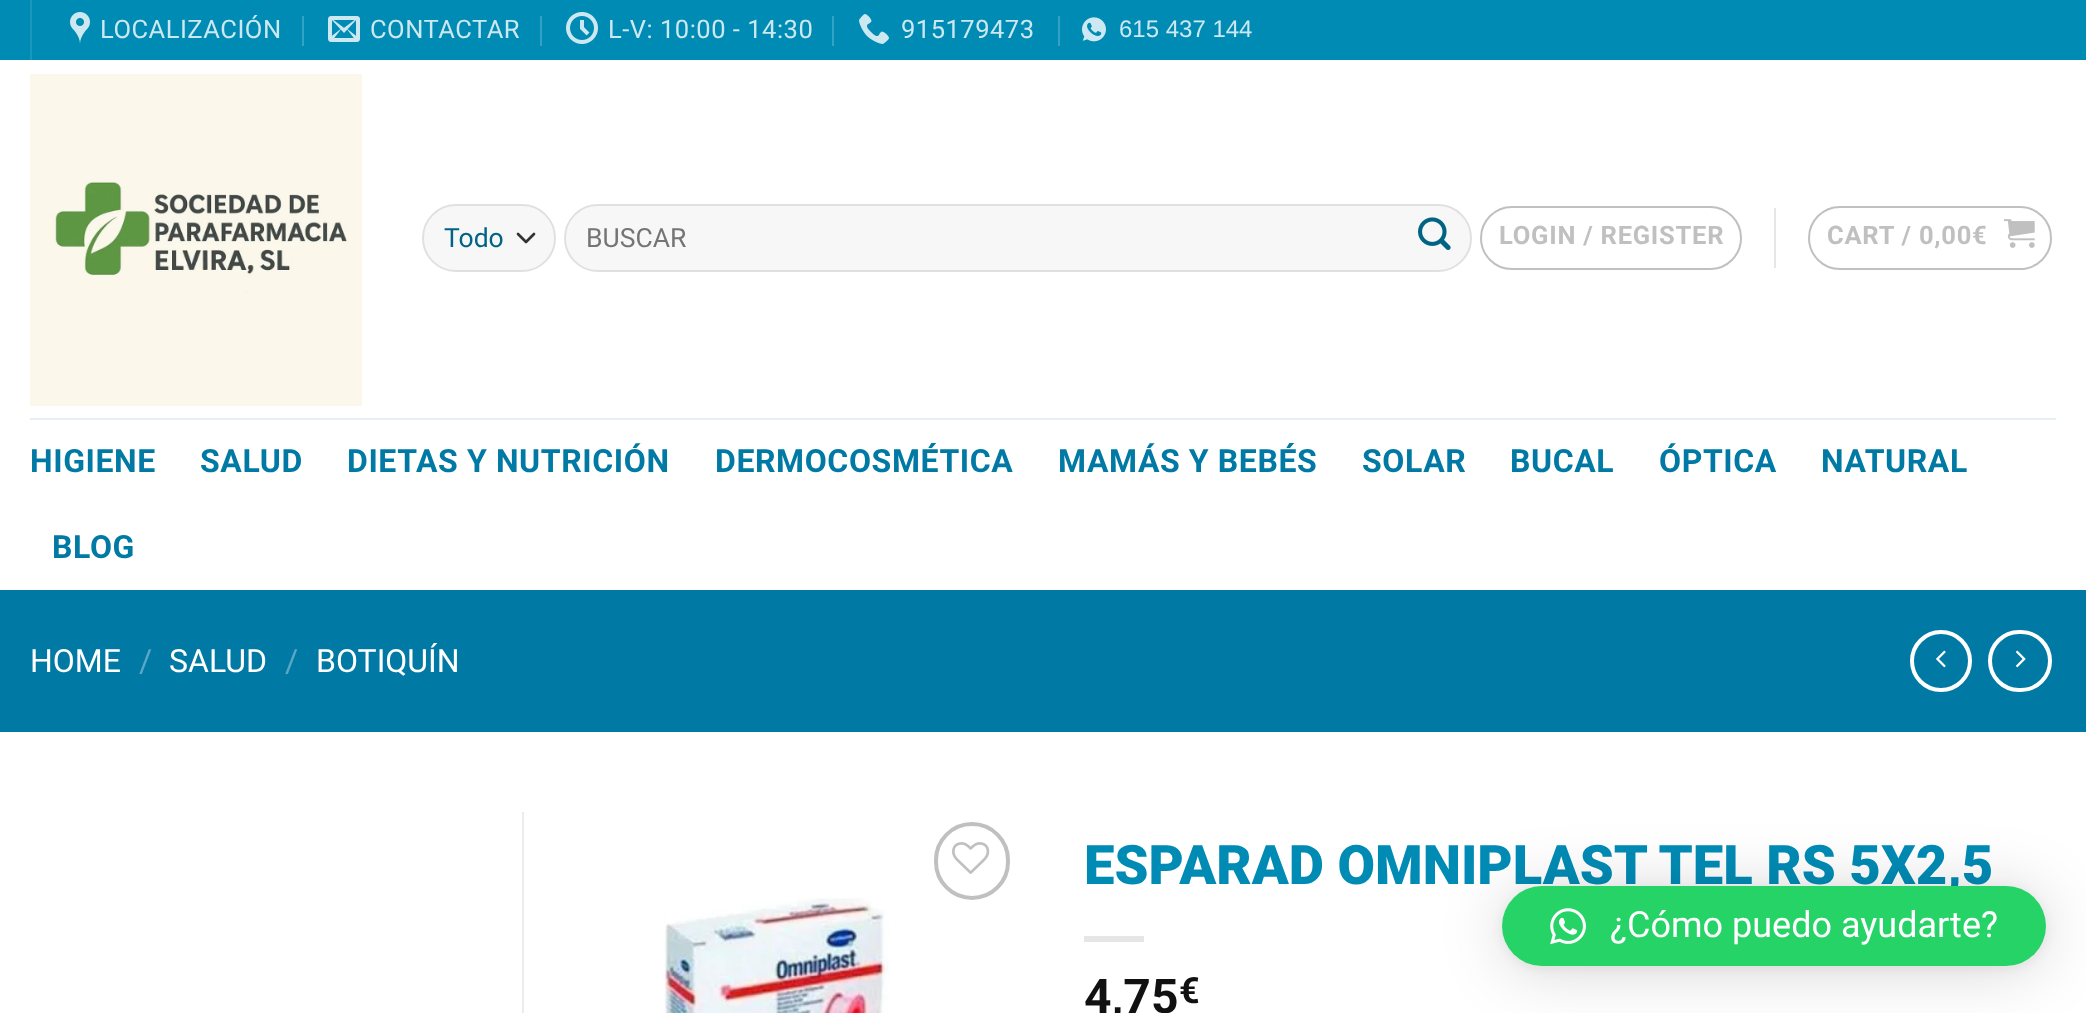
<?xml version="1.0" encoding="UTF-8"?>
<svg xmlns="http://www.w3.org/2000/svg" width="2086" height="1013">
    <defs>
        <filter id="blur1" x="-50%" y="-200%" width="200%" height="500%"><feGaussianBlur stdDeviation="32"/></filter>
        <filter id="blur2" x="-50%" y="-200%" width="200%" height="500%"><feGaussianBlur stdDeviation="6"/></filter>
    </defs>
    <rect width="100%" height="100%" fill="#FFFFFF"/>
    <rect x="0" y="0" width="2086" height="60" fill="#008BB5"/>
    <rect x="30" y="0" width="2" height="60" fill="#1A97BC"/>
    <image x="70" y="12" width="20" height="32" href="img_01.png"/>
    <text x="100" y="38" font-family="Roboto" font-size="25.5" letter-spacing="0.5" fill="#CCE8F0">LOCALIZACIÓN</text>
    <rect x="302" y="16" width="2" height="30" fill="#33A2C4"/>
    <image x="328" y="16" width="32" height="26" href="img_02.png"/>
    <text x="370" y="38" font-family="Roboto" font-size="25.5" letter-spacing="0.5" fill="#CCE8F0">CONTACTAR</text>
    <rect x="540" y="16" width="2" height="30" fill="#33A2C4"/>
    <image x="566" y="12" width="32" height="32" href="img_03.png"/>
    <text x="608" y="38" font-family="Roboto" font-size="25.5" letter-spacing="0.5" fill="#CCE8F0">L-V: 10:00 - 14:30</text>
    <rect x="832" y="16" width="2" height="30" fill="#33A2C4"/>
    <image x="859" y="14" width="30" height="30" href="img_04.png"/>
    <text x="901" y="38" font-family="Roboto" font-size="25.5" letter-spacing="0.5" fill="#CCE8F0">915179473</text>
    <rect x="1058" y="16" width="2" height="30" fill="#33A2C4"/>
    <image x="1082" y="17" width="24" height="25" href="img_05.png"/>
    <text x="1119" y="37" font-family="Liberation Sans" font-size="24" fill="#CCE8F0">615 437 144</text>
    <image x="30" y="74" width="332" height="332" href="img_06.png"/>
    <rect x="422" y="204" width="134" height="68" rx="34" fill="#F7F7F7"/>
    <path d="M 518 234 L 526 242 L 534 234" fill="none" stroke="#333333" stroke-width="2.7" stroke-linecap="round" stroke-linejoin="round"/>
    <rect x="423" y="205" width="132" height="66" rx="33" fill="none" stroke="#000000" stroke-opacity="0.09" stroke-width="2"/>
    <text x="444" y="247" font-family="Roboto" font-size="26.5" fill="#016482">Todo</text>
    <rect x="564" y="204" width="908" height="68" rx="34" fill="#F7F7F7"/>
    <rect x="565" y="205" width="906" height="66" rx="33" fill="none" stroke="#000000" stroke-opacity="0.09" stroke-width="2"/>
    <text x="586" y="247" font-family="Roboto" font-size="26.5" fill="#757575">BUSCAR</text>
    <image x="1418" y="217" width="33" height="33" href="img_07.png"/>
    <rect x="1481" y="207" width="260" height="62" rx="31" fill="none" stroke="#C0C0C0" stroke-width="2"/>
    <text x="1499" y="244" font-family="Roboto" font-size="25.5" font-weight="700" letter-spacing="0.75" fill="#C0C0C0">LOGIN / REGISTER</text>
    <rect x="1774" y="208" width="2" height="60" fill="#E6E6E6"/>
    <rect x="1809" y="207" width="242" height="62" rx="31" fill="none" stroke="#C0C0C0" stroke-width="2"/>
    <text x="1827" y="244" font-family="Roboto" font-size="25.5" font-weight="700" letter-spacing="0.75" fill="#C0C0C0">CART / 0,00€</text>
    <image x="2004" y="219" width="31" height="29" href="img_08.png"/>
    <rect x="30" y="418" width="2026" height="2" fill="#E6F0F3"/>
    <text x="30" y="472" font-family="Roboto" font-size="32" font-weight="700" letter-spacing="0.6" fill="#007AA4">HIGIENE</text>
    <text x="200" y="472" font-family="Roboto" font-size="32" font-weight="700" letter-spacing="0.6" fill="#007AA4">SALUD</text>
    <text x="347" y="472" font-family="Roboto" font-size="32" font-weight="700" letter-spacing="0.6" fill="#007AA4">DIETAS Y NUTRICIÓN</text>
    <text x="715" y="472" font-family="Roboto" font-size="32" font-weight="700" letter-spacing="0.6" fill="#007AA4">DERMOCOSMÉTICA</text>
    <text x="1058" y="472" font-family="Roboto" font-size="32" font-weight="700" letter-spacing="0.6" fill="#007AA4">MAMÁS Y BEBÉS</text>
    <text x="1362" y="472" font-family="Roboto" font-size="32" font-weight="700" letter-spacing="0.6" fill="#007AA4">SOLAR</text>
    <text x="1510" y="472" font-family="Roboto" font-size="32" font-weight="700" letter-spacing="0.6" fill="#007AA4">BUCAL</text>
    <text x="1659" y="472" font-family="Roboto" font-size="32" font-weight="700" letter-spacing="0.6" fill="#007AA4">ÓPTICA</text>
    <text x="1821" y="472" font-family="Roboto" font-size="32" font-weight="700" letter-spacing="0.6" fill="#007AA4">NATURAL</text>
    <text x="52" y="558" font-family="Roboto" font-size="32" font-weight="700" letter-spacing="0.6" fill="#007AA4">BLOG</text>
    <rect x="0" y="590" width="2086" height="142" fill="#007AA4"/>
    <text x="30" y="672" font-family="Roboto" font-size="32" fill="#FFFFFF">HOME</text>
    <text x="139" y="672" font-family="Roboto" font-size="32" fill="#59A9C4">/</text>
    <text x="169" y="672" font-family="Roboto" font-size="32" fill="#FFFFFF">SALUD</text>
    <text x="285" y="672" font-family="Roboto" font-size="32" fill="#59A9C4">/</text>
    <text x="316" y="672" font-family="Roboto" font-size="32" fill="#FFFFFF">BOTIQUÍN</text>
    <circle cx="1941" cy="661" r="29" fill="none" stroke="#FFFFFF" stroke-width="4"/>
    <image x="1936" y="650" width="10" height="18" href="img_09.png"/>
    <rect x="1990" y="632" width="60" height="58" rx="29" fill="none" stroke="#FFFFFF" stroke-width="4"/>
    <image x="2015" y="650" width="11" height="18" href="img_10.png"/>
    <rect x="522" y="812" width="2" height="201" fill="#ECECEC"/>
    <rect x="936" y="824" width="72" height="74" rx="36" fill="none" stroke="#C0C0C0" stroke-width="4"/>
    <image x="952" y="842" width="38" height="32" href="img_11.png"/>
    <image x="664" y="898" width="225" height="115" href="img_12.png"/>
    <text x="1084" y="884" font-family="Roboto" font-size="54.4" font-weight="900" fill="#008BB5">ESPARAD OMNIPLAST TEL RS 5X2,5</text>
    <rect x="1084" y="936" width="60" height="6" fill="#E6E6E6"/>
    <text x="1084" y="1013" font-family="Roboto" font-size="48" font-weight="700" fill="#111111">4,75</text>
    <text x="1179" y="1003" font-family="Roboto" font-size="36" font-weight="700" fill="#111111">€</text>
    <rect x="1502" y="890" width="544" height="80" rx="40" fill="#000000" fill-opacity="0.16" filter="url(#blur1)"/>
    <rect x="1502" y="888" width="544" height="80" rx="40" fill="#000000" fill-opacity="0.06" filter="url(#blur2)"/>
    <rect x="1502" y="886" width="544" height="80" rx="40" fill="#25D366"/>
    <image x="1550" y="908" width="36" height="37" href="img_13.png"/>
    <text x="1610" y="937" font-family="Roboto" font-size="36" fill="#FFFFFF">¿Cómo puedo ayudarte?</text>
</svg>
